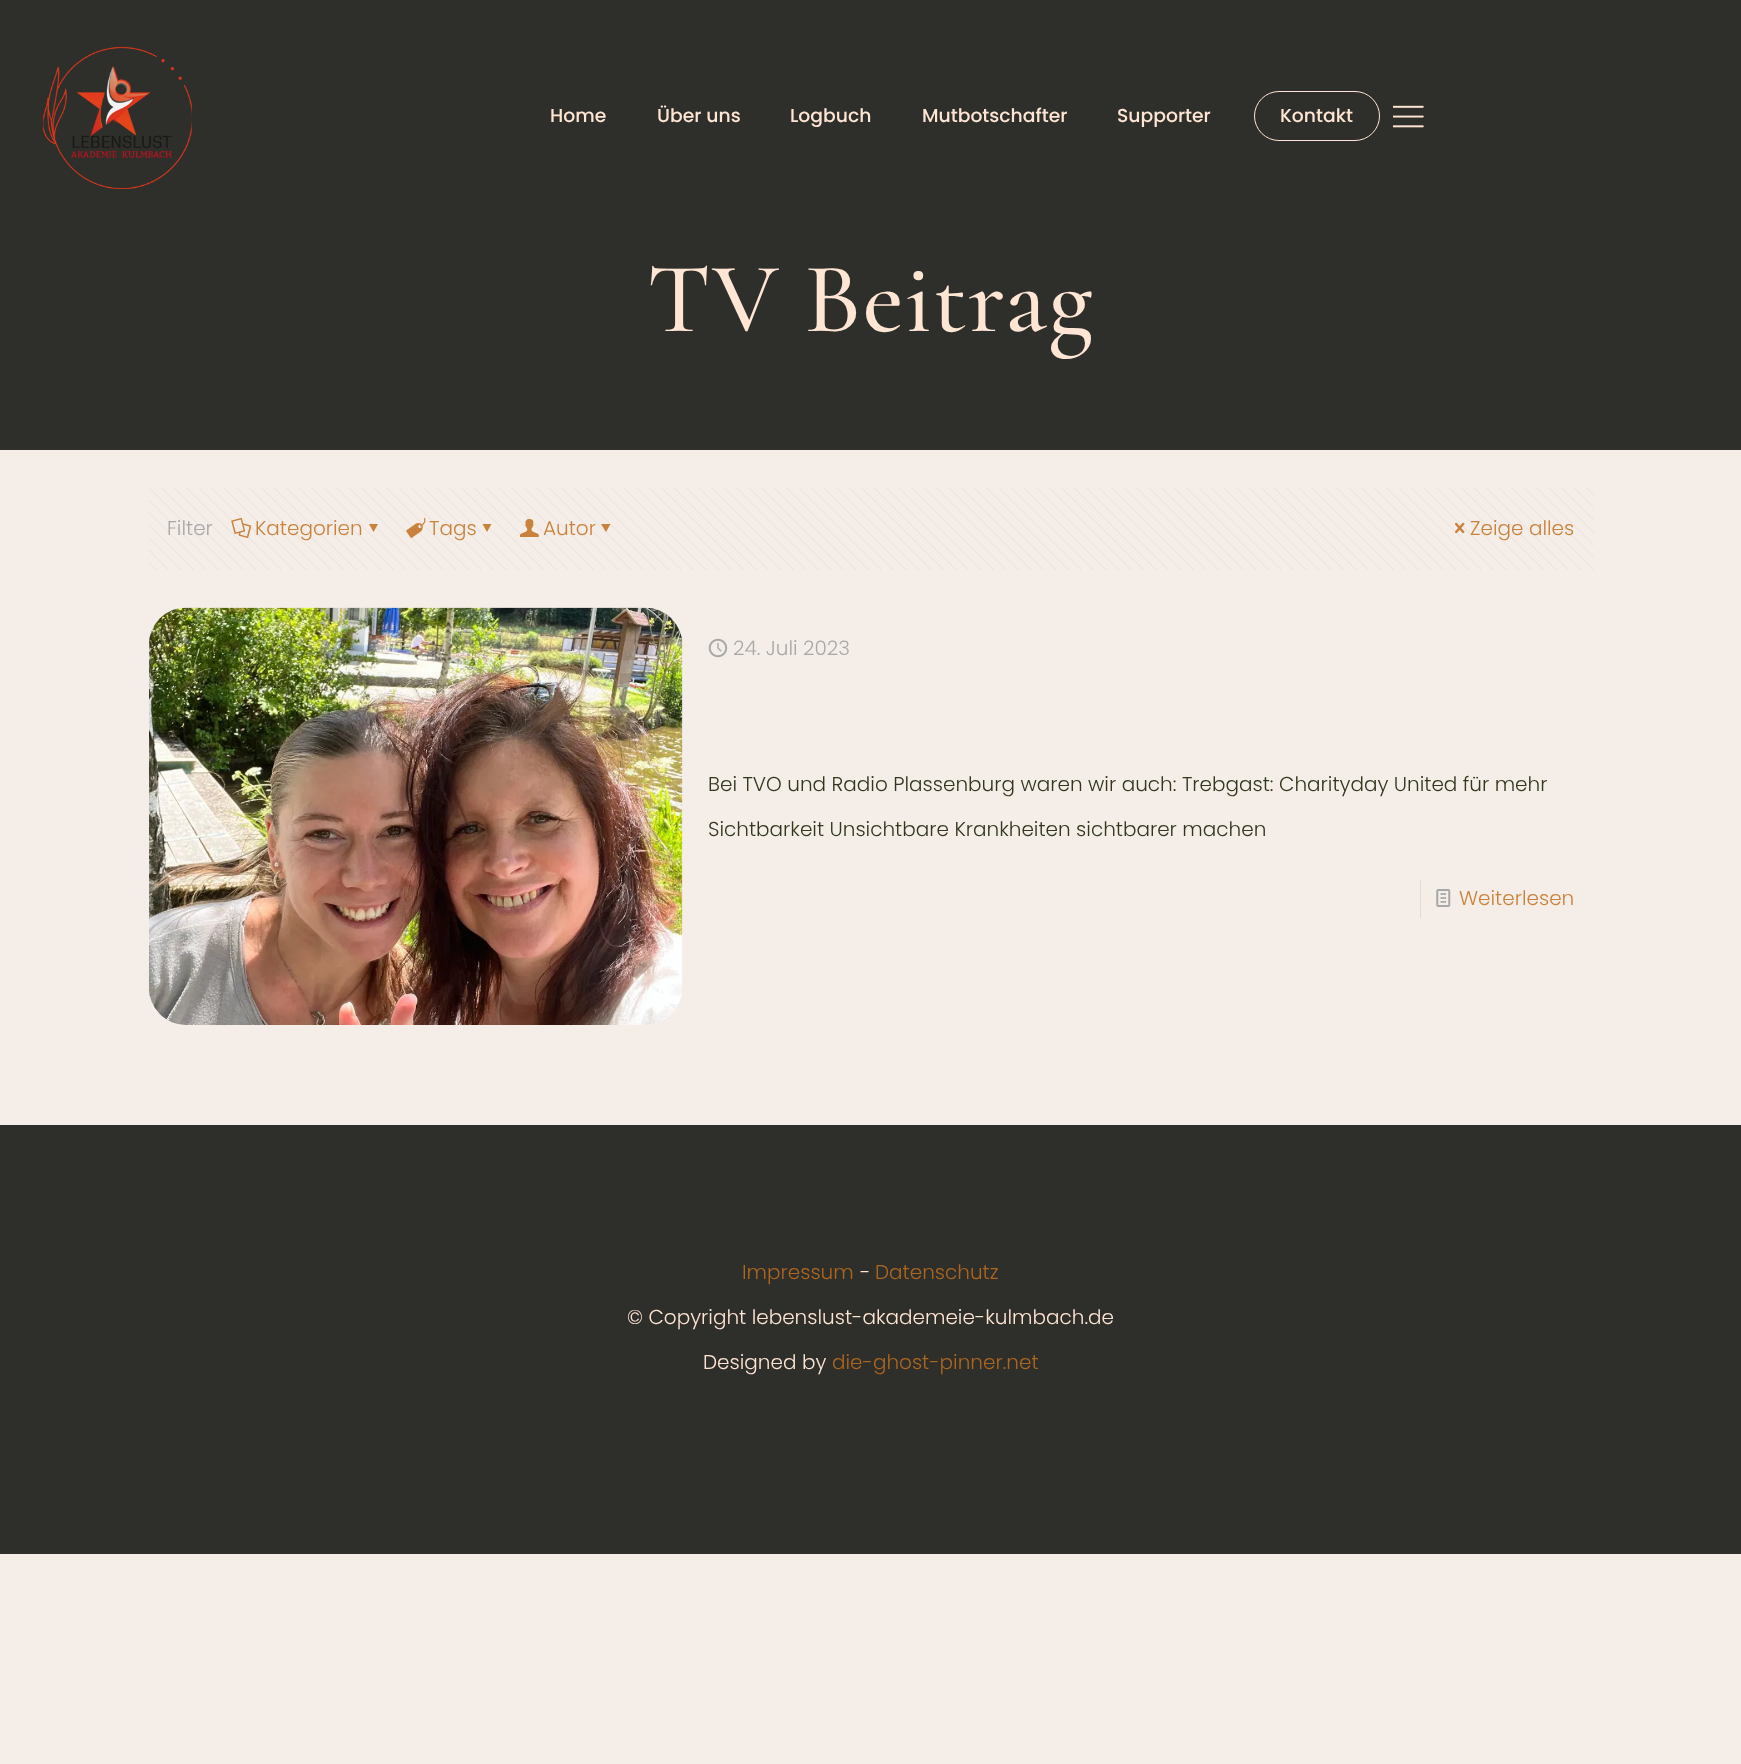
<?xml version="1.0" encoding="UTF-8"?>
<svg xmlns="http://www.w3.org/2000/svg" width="1741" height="1764">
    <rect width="100%" height="100%" fill="#F5EDE7"/>
    <rect x="0" y="0" width="1741" height="450" fill="#2E2F2A"/>
    <image x="42" y="46" width="150" height="144" href="img_01.png"/>
    <text x="550" y="122" font-family="Poppins" font-size="18.75" font-weight="500" fill="#FFE5D4">Home</text>
    <text x="657" y="122" font-family="Poppins" font-size="18.75" font-weight="500" fill="#FFE5D4">Über uns</text>
    <text x="790" y="122" font-family="Poppins" font-size="18.75" font-weight="500" fill="#FFE5D4">Logbuch</text>
    <text x="922" y="122" font-family="Poppins" font-size="18.75" font-weight="500" fill="#FFE5D4">Mutbotschafter</text>
    <text x="1117" y="122" font-family="Poppins" font-size="18.75" font-weight="500" fill="#FFE5D4">Supporter</text>
    <rect x="1254.5" y="91.5" width="125" height="49" rx="24.5" fill="none" stroke="#FFE5D4"/>
    <text x="1280" y="122" font-family="Poppins" font-size="18.75" font-weight="500" fill="#FFE5D4">Kontakt</text>
    <image x="1393" y="105" width="31" height="23" href="img_02.png"/>
    <text x="647" y="331" font-family="Cormorant Garamond" font-size="100" font-weight="500" letter-spacing="1.25" fill="#FFE5D4">TV Beitrag</text>
    <image x="149" y="488" width="1445" height="82" href="img_03.png"/>
    <text x="167" y="535" font-family="Poppins" font-size="20" font-weight="300" fill="#A8A8A8">Filter</text>
    <image x="231" y="518" width="21" height="20" href="img_04.png"/>
    <text x="255" y="535" font-family="Poppins" font-size="20" font-weight="300" fill="#C9823B">Kategorien</text>
    <path d="M 378 524 L 373.5 532 L 369 524 Z" fill="#C9823B"/>
    <image x="406" y="518" width="20" height="20" href="img_05.png"/>
    <text x="429" y="535" font-family="Poppins" font-size="20" font-weight="300" fill="#C9823B">Tags</text>
    <path d="M 491.5 524 L 487 532 L 482.5 524 Z" fill="#C9823B"/>
    <image x="520" y="519" width="19" height="18" href="img_06.png"/>
    <text x="543" y="535" font-family="Poppins" font-size="20" font-weight="300" fill="#C9823B">Autor</text>
    <path d="M 610.5 524 L 606 532 L 601 524 Z" fill="#C9823B"/>
    <image x="1455" y="522" width="10" height="12" href="img_07.png"/>
    <text x="1470" y="535" font-family="Poppins" font-size="20" font-weight="300" fill="#C9823B">Zeige alles</text>
    <image x="149" y="607" width="534" height="418" href="img_08.png"/>
    <image x="708" y="638" width="20" height="20" href="img_09.png"/>
    <text x="733" y="655" font-family="Poppins" font-size="20" font-weight="300" fill="#A8A8A8">24. Juli 2023</text>
    <text x="708" y="791" font-family="Poppins" font-size="20" font-weight="300" fill="#31361D">Bei TVO und Radio Plassenburg waren wir auch: Trebgast: Charityday United für mehr</text>
    <text x="708" y="836" font-family="Poppins" font-size="20" font-weight="300" fill="#31361D">Sichtbarkeit Unsichtbare Krankheiten sichtbarer machen</text>
    <rect x="1420" y="880" width="1" height="38" fill="#E1DAD5"/>
    <image x="1436" y="889" width="15" height="18" href="img_10.png"/>
    <text x="1459" y="905" font-family="Poppins" font-size="20" font-weight="300" fill="#C9823B">Weiterlesen</text>
    <rect x="0" y="1125" width="1741" height="429" fill="#2E2F2A"/>
    <text x="742" y="1279" font-family="Poppins" font-size="20" font-weight="300" fill="#AC6620">Impressum</text>
    <text x="860" y="1279" font-family="Poppins" font-size="20" font-weight="300" fill="#FFE5D4">-</text>
    <text x="875" y="1279" font-family="Poppins" font-size="20" font-weight="300" fill="#AC6620">Datenschutz</text>
    <text x="627" y="1324" font-family="Poppins" font-size="20" font-weight="300" fill="#FFE5D4">© Copyright lebenslust-akademeie-kulmbach.de</text>
    <text x="703" y="1369" font-family="Poppins" font-size="20" font-weight="300" fill="#FFE5D4">Designed by</text>
    <text x="832" y="1369" font-family="Poppins" font-size="20" font-weight="300" fill="#AC6620">die-ghost-pinner.net</text>
</svg>
